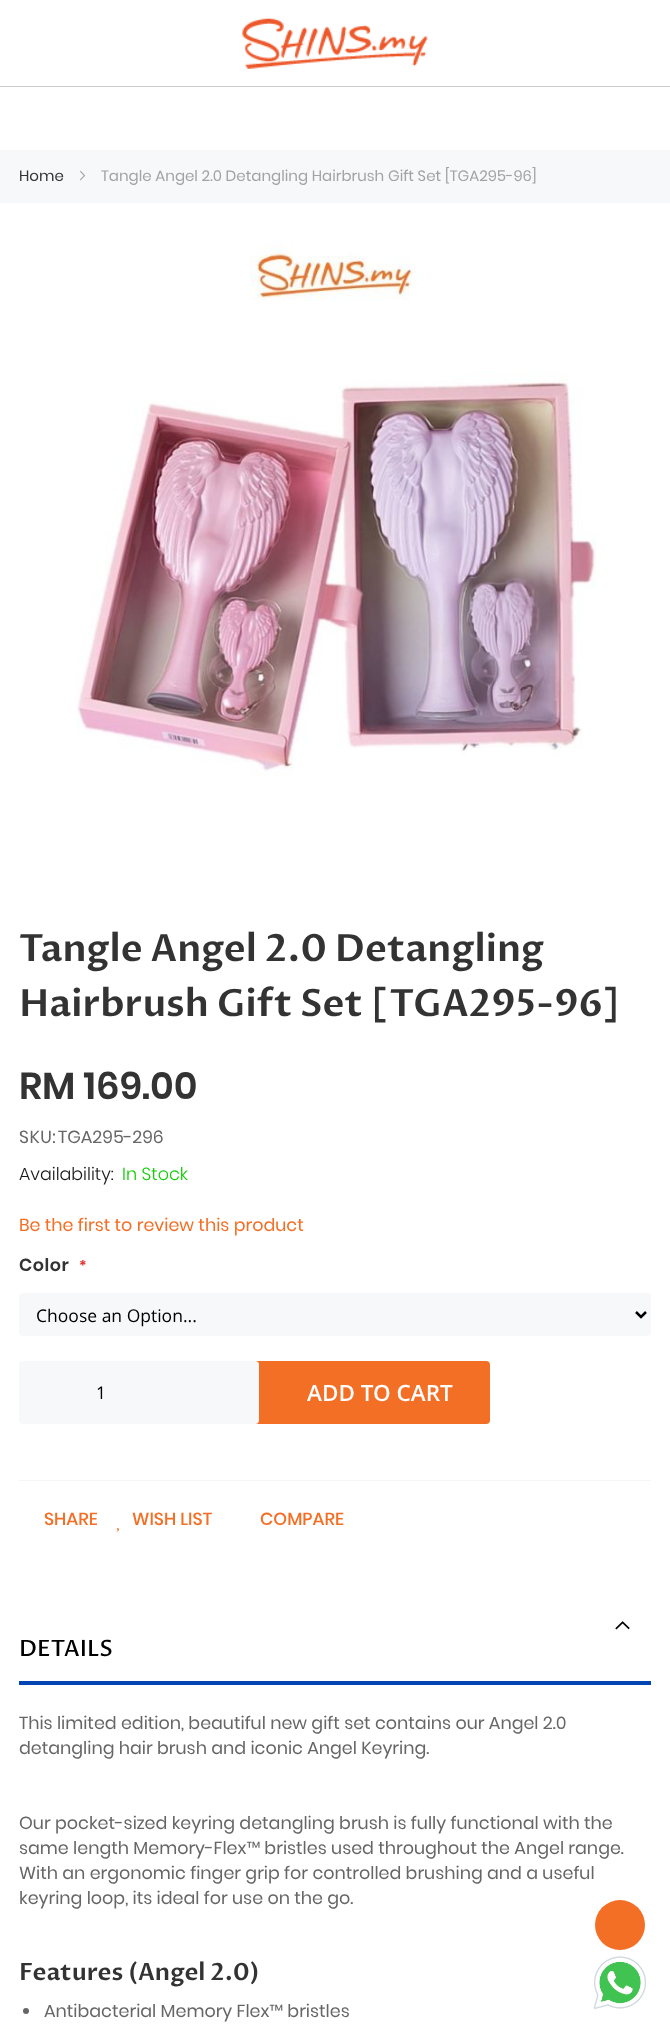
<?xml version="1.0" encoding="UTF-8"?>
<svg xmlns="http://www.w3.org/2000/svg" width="670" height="2043">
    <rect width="100%" height="100%" fill="#FFFFFF"/>
    <image x="242" y="18" width="186" height="51" href="img_01.png"/>
    <rect x="0" y="86" width="670" height="1" fill="#CCCCCC"/>
    <rect x="0" y="150" width="670" height="53" fill="#F7F8FA"/>
    <text x="19" y="181" font-family="Poppins" font-size="15" fill="#333333">Home</text>
    <image x="79" y="171" width="7" height="10" href="img_02.png"/>
    <text x="101" y="181" font-family="Poppins" font-size="15" fill="#A3A3A3">Tangle Angel 2.0 Detangling Hairbrush Gift Set [TGA295-96]</text>
    <image x="76" y="242" width="521" height="535" href="img_03.png"/>
    <text font-family="Proza Libre" font-size="37.5" font-weight="600" fill="#333333">
        <tspan x="19" y="961">Tangle Angel 2.0 Detangling</tspan>
        <tspan x="19" y="1016">Hairbrush Gift Set [TGA295-96]</tspan>
    </text>
    <text x="19" y="1099" font-family="Poppins" font-size="37.5" font-weight="600" fill="#333333">RM 169.00</text>
    <text x="19" y="1143" font-family="Poppins" font-size="17.5" letter-spacing="0.5" fill="#666666">SKU:</text>
    <text x="58" y="1143" font-family="Poppins" font-size="17.5" fill="#666666">TGA295-296</text>
    <text x="19" y="1180" font-family="Poppins" font-size="17.5" font-weight="300" fill="#191919">Availability:</text>
    <text x="122" y="1180" font-family="Poppins" font-size="17.5" font-weight="300" fill="#0ECE00">In Stock</text>
    <text x="19" y="1231" font-family="Poppins" font-size="17.5" fill="#F36F25">Be the first to review this product</text>
    <rect x="19" y="1480" width="632" height="1" fill="#F5F5F5"/>
    <text x="19" y="1271" font-family="Poppins" font-size="17.5" font-weight="600" letter-spacing="0.5" fill="#333333">Color</text>
    <text x="79" y="1271" font-family="Poppins" font-size="15" font-weight="600" letter-spacing="0.5" fill="#E02B27">*</text>
    <rect x="19" y="1293" width="632" height="43" rx="4" fill="#F7F8FA"/>
    <path d="M 636 1312 L 641 1317 L 646 1312" fill="none" stroke="#000000" stroke-width="2.5"/>
    <text x="36" y="1322" font-family="Open Sans" font-size="17.5" fill="#000000">Choose an Option...</text>
    <rect x="240" y="1361" width="250" height="63" rx="4" fill="#F36F25"/>
    <rect x="19" y="1361" width="240" height="63" rx="4" fill="#F7F8FA"/>
    <text x="96" y="1399" font-family="Open Sans" font-size="17.5" fill="#000000">1</text>
    <text x="307" y="1401" font-family="Open Sans" font-size="22.5" font-weight="600" fill="#FFFFFF">ADD TO CART</text>
    <text x="44" y="1525" font-family="Poppins" font-size="17.5" font-weight="500" fill="#F36F25">SHARE</text>
    <text x="132" y="1525" font-family="Poppins" font-size="17.5" font-weight="500" fill="#F36F25">WISH LIST</text>
    <image x="116" y="1528" width="3" height="4" href="img_04.png"/>
    <text x="260" y="1525" font-family="Poppins" font-size="17.5" font-weight="500" fill="#F36F25">COMPARE</text>
    <rect x="19" y="1681" width="632" height="4" fill="#0145B2"/>
    <image x="615" y="1621" width="15" height="9" href="img_05.png"/>
    <text x="19" y="1656" font-family="Proza Libre" font-size="22.5" font-weight="500" fill="#000000">DETAILS</text>
    <text font-family="Poppins" font-size="17.5" fill="#666666">
        <tspan x="19" y="1729">This limited edition, beautiful new gift set contains our Angel 2.0</tspan>
        <tspan x="19" y="1754">detangling hair brush and iconic Angel Keyring.</tspan>
    </text>
    <text font-family="Poppins" font-size="17.5" fill="#666666">
        <tspan x="19" y="1829">Our pocket-sized keyring detangling brush is fully functional with the</tspan>
        <tspan x="19" y="1854">same length Memory-Flex™ bristles used throughout the Angel range.</tspan>
        <tspan x="19" y="1879">With an ergonomic finger grip for controlled brushing and a useful</tspan>
        <tspan x="19" y="1904">keyring loop, its ideal for use on the go.</tspan>
    </text>
    <text x="19" y="1980" font-family="Proza Libre" font-size="23.75" font-weight="600" fill="#333333">Features (Angel 2.0)</text>
    <circle cx="26" cy="2011" r="3" fill="#666666"/>
    <text x="44" y="2017" font-family="Poppins" font-size="17.5" fill="#666666">Antibacterial Memory Flex™ bristles</text>
    <circle cx="620" cy="1925" r="25" fill="#F36F25"/>
    <image x="593" y="1956" width="53" height="53" href="img_06.png"/>
</svg>
